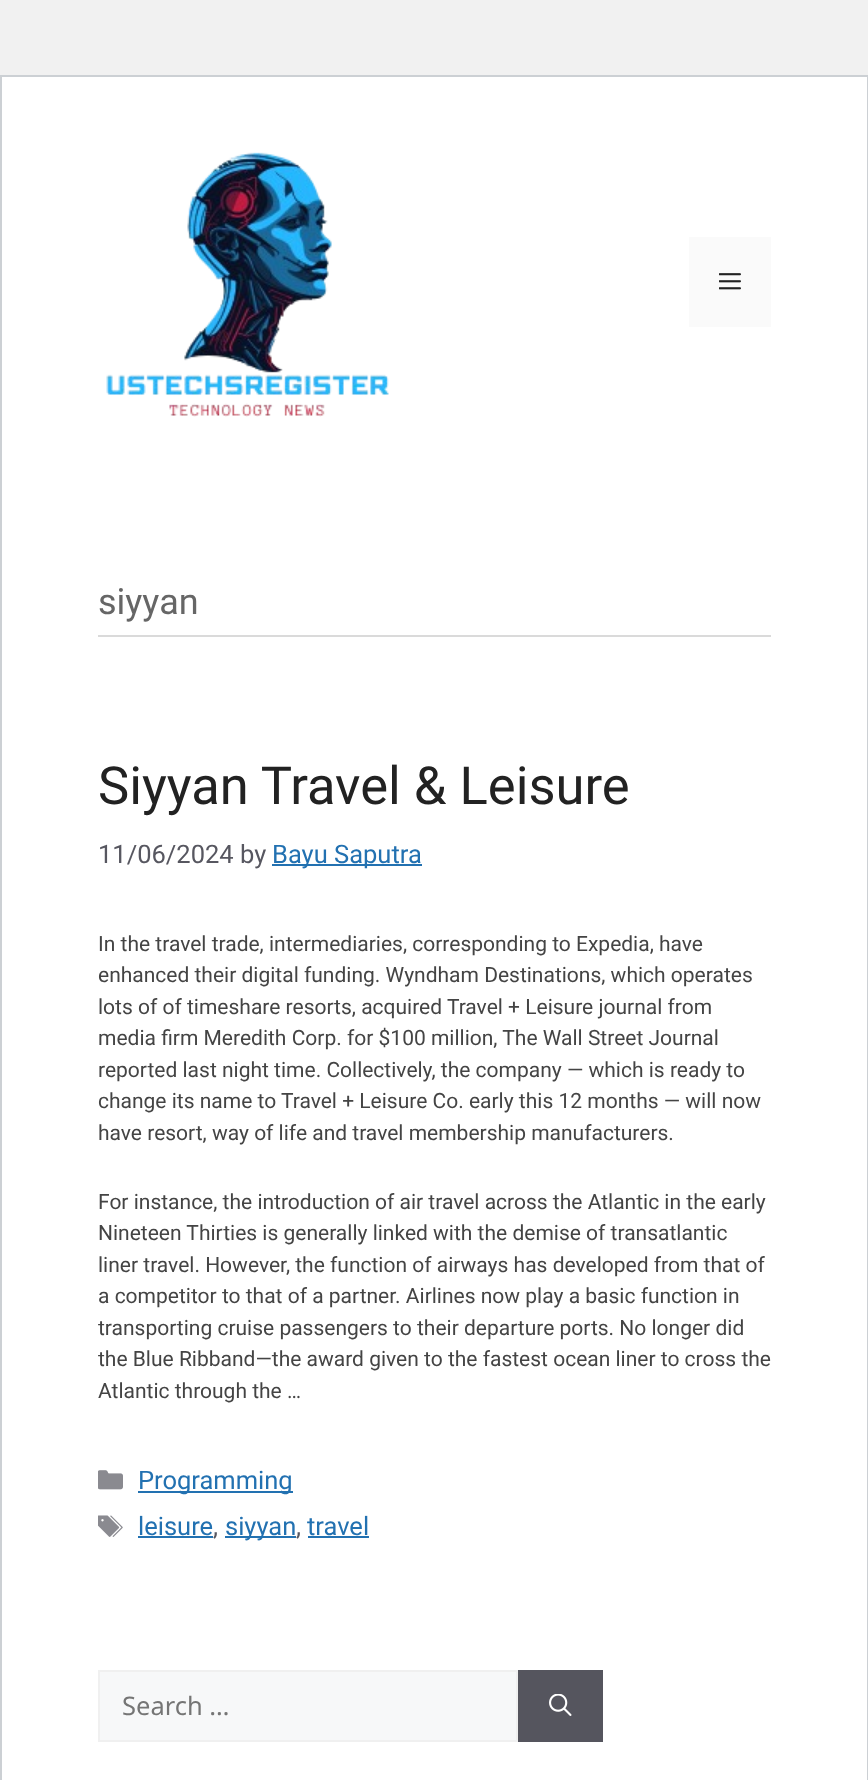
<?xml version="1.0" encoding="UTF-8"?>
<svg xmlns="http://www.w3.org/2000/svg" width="868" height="1780">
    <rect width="100%" height="100%" fill="#F1F1F1"/>
    <rect x="1" y="76" width="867" height="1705" fill="#FFFFFF" stroke="#CCD0D4" stroke-width="2"/>
    <image x="106" y="152" width="283" height="265" href="img_01.png"/>
    <rect x="689" y="237" width="82" height="90" fill="#FAFAFA"/>
    <image x="719" y="273" width="22" height="17" href="img_02.png"/>
    <rect x="98" y="635" width="673" height="2" fill="#DADADA"/>
    <text x="98" y="614" font-family="Roboto" font-size="36" fill="#666666">siyyan</text>
    <text x="98" y="804" font-family="Roboto" font-size="52.5" fill="#222222">Siyyan Travel &amp; Leisure</text>
    <text x="98" y="863" font-family="Roboto" font-size="25.5" fill="#575760">11/06/2024 by</text>
    <rect x="272" y="864" width="150" height="2" fill="#2271B1"/>
    <text x="272" y="863" font-family="Roboto" font-size="25.5" fill="#2271B1">Bayu Saputra</text>
    <text font-family="Roboto" font-size="21" fill="#444444">
        <tspan x="98" y="951">In the travel trade, intermediaries, corresponding to Expedia, have</tspan>
        <tspan x="98" y="982">enhanced their digital funding. Wyndham Destinations, which operates</tspan>
        <tspan x="98" y="1014">lots of of timeshare resorts, acquired Travel + Leisure journal from</tspan>
        <tspan x="98" y="1045">media firm Meredith Corp. for $100 million, The Wall Street Journal</tspan>
        <tspan x="98" y="1077">reported last night time. Collectively, the company — which is ready to</tspan>
        <tspan x="98" y="1108">change its name to Travel + Leisure Co. early this 12 months — will now</tspan>
        <tspan x="98" y="1140">have resort, way of life and travel membership manufacturers.</tspan>
    </text>
    <text font-family="Roboto" font-size="21" fill="#444444">
        <tspan x="98" y="1209">For instance, the introduction of air travel across the Atlantic in the early</tspan>
        <tspan x="98" y="1240">Nineteen Thirties is generally linked with the demise of transatlantic</tspan>
        <tspan x="98" y="1272">liner travel. However, the function of airways has developed from that of</tspan>
        <tspan x="98" y="1303">a competitor to that of a partner. Airlines now play a basic function in</tspan>
        <tspan x="98" y="1335">transporting cruise passengers to their departure ports. No longer did</tspan>
        <tspan x="98" y="1366">the Blue Ribband—the award given to the fastest ocean liner to cross the</tspan>
        <tspan x="98" y="1398">Atlantic through the …</tspan>
    </text>
    <image x="98" y="1470" width="25" height="20" href="img_03.png"/>
    <rect x="138" y="1491" width="155" height="2" fill="#2271B1"/>
    <text x="138" y="1489" font-family="Roboto" font-size="25.5" fill="#2271B1">Programming</text>
    <image x="98" y="1515" width="25" height="22" href="img_04.png"/>
    <text x="138" y="1535" font-family="Roboto" font-size="25.5" fill="#2271B1">leisure</text>
    <rect x="138" y="1536" width="75" height="2" fill="#2271B1"/>
    <text x="213" y="1535" font-family="Roboto" font-size="25.5" fill="#575760">,</text>
    <rect x="225" y="1536" width="71" height="2" fill="#2271B1"/>
    <text x="225" y="1535" font-family="Roboto" font-size="25.5" fill="#2271B1">siyyan</text>
    <text x="296" y="1535" font-family="Roboto" font-size="25.5" fill="#575760">,</text>
    <text x="307" y="1535" font-family="Roboto" font-size="25.5" fill="#2271B1">travel</text>
    <rect x="308" y="1536" width="61" height="2" fill="#2271B1"/>
    <rect x="99" y="1671" width="418" height="70" fill="#F7F8F9" stroke="#F0F0F0" stroke-width="2"/>
    <text x="122" y="1715" font-family="Noto Sans" font-size="25.5" fill="#757575">Search …</text>
    <rect x="518" y="1670" width="85" height="72" fill="#55555E"/>
    <image x="549" y="1694" width="23" height="22" href="img_05.png"/>
</svg>
